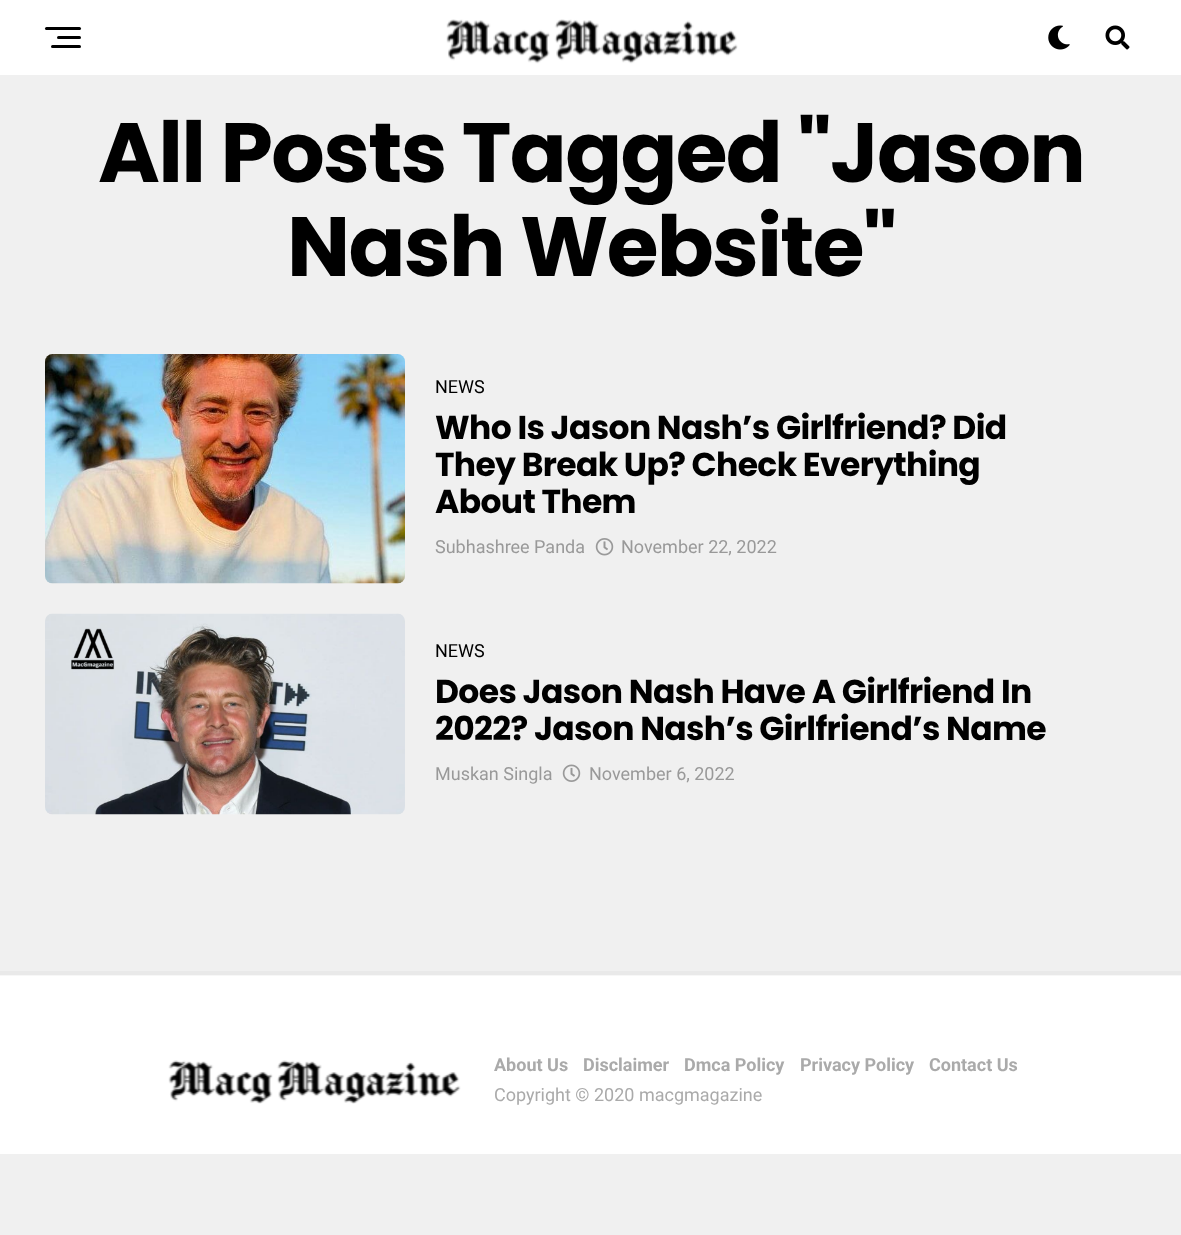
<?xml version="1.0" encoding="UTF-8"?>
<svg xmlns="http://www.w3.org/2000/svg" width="1181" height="1235">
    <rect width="100%" height="100%" fill="#F0F0F0"/>
    <rect x="0" y="971" width="1181" height="4" fill="#E9E9E9"/>
    <rect x="0" y="0" width="1181" height="75" fill="#FFFFFF"/>
    <rect x="45" y="27" width="36" height="3" rx="1.5" fill="#000000"/>
    <rect x="57" y="36" width="24" height="3" rx="1.5" fill="#000000"/>
    <rect x="51" y="45" width="30" height="3" rx="1.5" fill="#000000"/>
    <image x="446" y="19" width="292" height="45" href="img_01.png"/>
    <image x="1048" y="25" width="22" height="25" href="img_02.png"/>
    <image x="1105" y="25" width="25" height="25" href="img_03.png"/>
    <text x="98" y="182" font-family="Poppins" font-size="84" font-weight="700" letter-spacing="-1.7" fill="#000000">All Posts Tagged "Jason</text>
    <text x="287" y="276" font-family="Poppins" font-size="84" font-weight="700" letter-spacing="-1.7" fill="#000000">Nash Website"</text>
    <image x="45" y="354" width="360" height="230" href="img_04.png"/>
    <text x="435" y="393" font-family="Roboto" font-size="18" fill="#000000">NEWS</text>
    <text font-family="Poppins" font-size="33" font-weight="700" letter-spacing="-0.65" fill="#000000">
        <tspan x="435" y="439">Who Is Jason Nash’s Girlfriend? Did</tspan>
        <tspan x="435" y="476">They Break Up? Check Everything</tspan>
        <tspan x="435" y="513">About Them</tspan>
    </text>
    <text x="435" y="553" font-family="Roboto" font-size="18" fill="#999999">Subhashree Panda</text>
    <image x="595" y="538" width="19" height="18" href="img_05.png"/>
    <text x="621" y="553" font-family="Roboto" font-size="18" fill="#999999">November 22, 2022</text>
    <image x="45" y="613" width="360" height="202" href="img_06.png"/>
    <text x="435" y="657" font-family="Roboto" font-size="18" fill="#000000">NEWS</text>
    <text font-family="Poppins" font-size="33" font-weight="700" letter-spacing="-0.65" fill="#000000">
        <tspan x="435" y="703">Does Jason Nash Have A Girlfriend In</tspan>
        <tspan x="435" y="740">2022? Jason Nash’s Girlfriend’s Name</tspan>
    </text>
    <text x="435" y="780" font-family="Roboto" font-size="18" fill="#999999">Muskan Singla</text>
    <image x="562" y="764" width="19" height="18" href="img_07.png"/>
    <text x="589" y="780" font-family="Roboto" font-size="18" fill="#999999">November 6, 2022</text>
    <rect x="0" y="976" width="1181" height="178" fill="#FFFFFF"/>
    <rect x="0" y="975" width="1181" height="1" fill="#F7F7F7"/>
    <image x="168" y="1060" width="293" height="44" href="img_08.png"/>
    <text x="494" y="1071" font-family="Roboto" font-size="18" font-weight="700" fill="#AAAAAA">About Us</text>
    <text x="583" y="1071" font-family="Roboto" font-size="18" font-weight="700" fill="#AAAAAA">Disclaimer</text>
    <text x="684" y="1071" font-family="Roboto" font-size="18" font-weight="700" fill="#AAAAAA">Dmca Policy</text>
    <text x="800" y="1071" font-family="Roboto" font-size="18" font-weight="700" fill="#AAAAAA">Privacy Policy</text>
    <text x="929" y="1071" font-family="Roboto" font-size="18" font-weight="700" fill="#AAAAAA">Contact Us</text>
    <text x="494" y="1101" font-family="Roboto" font-size="18" fill="#AAAAAA">Copyright © 2020 macgmagazine</text>
</svg>
